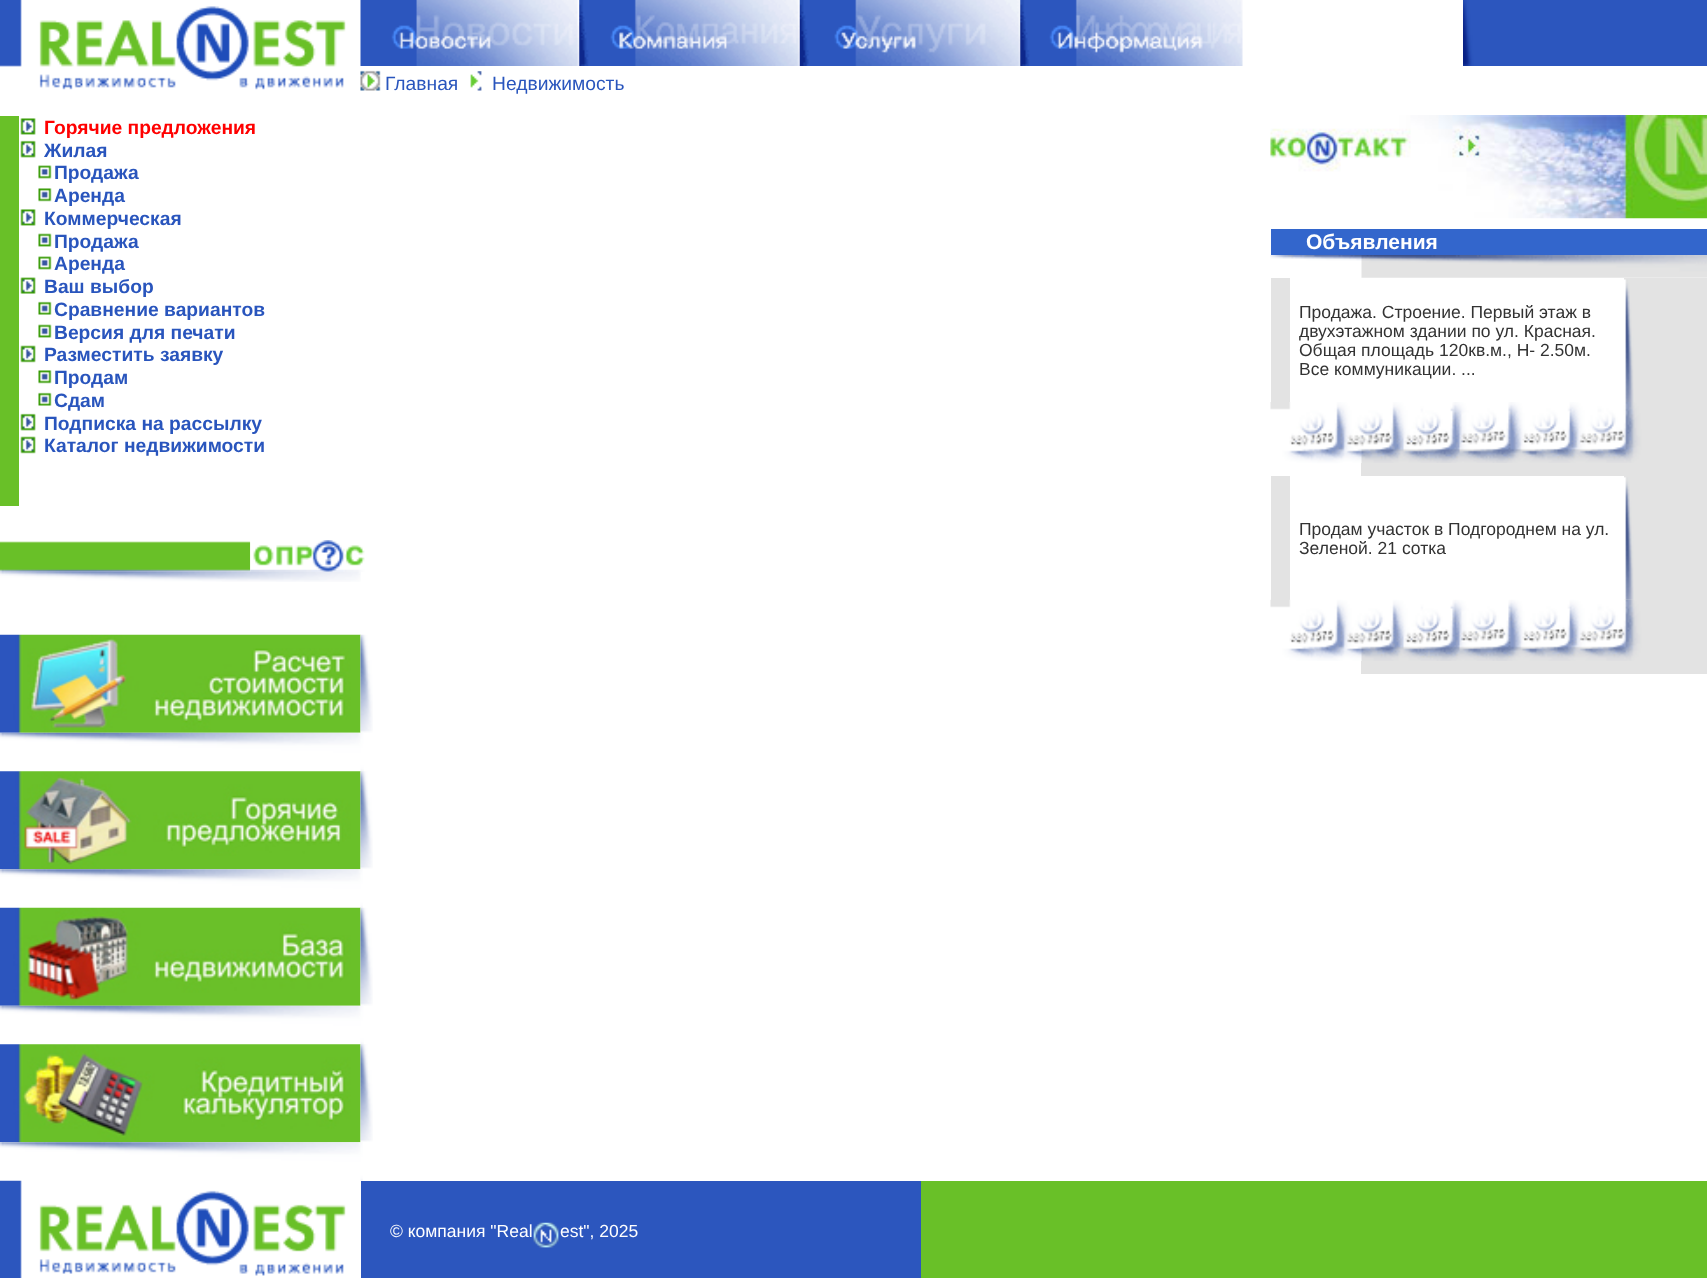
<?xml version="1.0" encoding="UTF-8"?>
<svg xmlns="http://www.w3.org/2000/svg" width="1707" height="1278">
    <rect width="100%" height="100%" fill="#FFFFFF"/>
    <image x="0" y="0" width="346" height="90" href="img_01.png"/>
    <image x="360" y="0" width="220" height="66" href="img_02.png"/>
    <image x="579" y="0" width="221" height="66" href="img_03.png"/>
    <image x="799" y="0" width="222" height="66" href="img_04.png"/>
    <image x="1020" y="0" width="223" height="66" href="img_05.png"/>
    <image x="1463" y="0" width="15" height="66" href="img_06.png"/>
    <rect x="1478" y="0" width="229" height="66" fill="#2C56BE"/>
    <image x="360" y="70" width="21" height="21" href="img_07.png"/>
    <text x="385" y="90" font-family="Liberation Sans" font-size="19.25" fill="#2955BD">Главная</text>
    <image x="470" y="71" width="12" height="20" href="img_08.png"/>
    <text x="492" y="90" font-family="Liberation Sans" font-size="19.25" fill="#2955BD">Недвижимость</text>
    <rect x="0" y="116" width="19" height="390" fill="#69C028"/>
    <image x="20" y="118" width="16" height="17" href="img_09.png"/>
    <text x="44" y="134" font-family="Liberation Sans" font-size="19.25" font-weight="700" fill="#FF0000">Горячие предложения</text>
    <image x="20" y="140" width="16" height="18" href="img_10.png"/>
    <text x="44" y="157" font-family="Liberation Sans" font-size="19.25" font-weight="700" fill="#2955BD">Жилая</text>
    <image x="38" y="165" width="14" height="14" href="img_11.png"/>
    <text x="54" y="179" font-family="Liberation Sans" font-size="19.25" font-weight="700" fill="#2955BD">Продажа</text>
    <image x="38" y="188" width="14" height="14" href="img_12.png"/>
    <text x="54" y="202" font-family="Liberation Sans" font-size="19.25" font-weight="700" fill="#2955BD">Аренда</text>
    <image x="20" y="209" width="16" height="17" href="img_13.png"/>
    <text x="44" y="225" font-family="Liberation Sans" font-size="19.25" font-weight="700" fill="#2955BD">Коммерческая</text>
    <image x="38" y="233" width="14" height="14" href="img_14.png"/>
    <text x="54" y="248" font-family="Liberation Sans" font-size="19.25" font-weight="700" fill="#2955BD">Продажа</text>
    <image x="38" y="256" width="14" height="14" href="img_11.png"/>
    <text x="54" y="270" font-family="Liberation Sans" font-size="19.25" font-weight="700" fill="#2955BD">Аренда</text>
    <image x="20" y="277" width="16" height="17" href="img_15.png"/>
    <text x="44" y="293" font-family="Liberation Sans" font-size="19.25" font-weight="700" fill="#2955BD">Ваш выбор</text>
    <image x="38" y="301" width="14" height="14" href="img_16.png"/>
    <text x="54" y="316" font-family="Liberation Sans" font-size="19.25" font-weight="700" fill="#2955BD">Сравнение вариантов</text>
    <image x="38" y="324" width="14" height="14" href="img_14.png"/>
    <text x="54" y="339" font-family="Liberation Sans" font-size="19.25" font-weight="700" fill="#2955BD">Версия для печати</text>
    <image x="20" y="345" width="16" height="18" href="img_17.png"/>
    <text x="44" y="361" font-family="Liberation Sans" font-size="19.25" font-weight="700" fill="#2955BD">Разместить заявку</text>
    <image x="38" y="370" width="14" height="14" href="img_12.png"/>
    <text x="54" y="384" font-family="Liberation Sans" font-size="19.25" font-weight="700" fill="#2955BD">Продам</text>
    <image x="38" y="392" width="14" height="14" href="img_16.png"/>
    <text x="54" y="407" font-family="Liberation Sans" font-size="19.25" font-weight="700" fill="#2955BD">Сдам</text>
    <image x="20" y="413" width="16" height="18" href="img_10.png"/>
    <text x="44" y="430" font-family="Liberation Sans" font-size="19.25" font-weight="700" fill="#2955BD">Подписка на рассылку</text>
    <image x="20" y="436" width="16" height="18" href="img_17.png"/>
    <text x="44" y="452" font-family="Liberation Sans" font-size="19.25" font-weight="700" fill="#2955BD">Каталог недвижимости</text>
    <image x="0" y="541" width="251" height="31" href="img_18.png"/>
    <image x="250" y="540" width="115" height="32" href="img_19.png"/>
    <image x="0" y="571" width="361" height="11" href="img_20.png"/>
    <image x="0" y="634" width="361" height="99" href="img_21.png"/>
    <image x="360" y="634" width="13" height="99" href="img_22.png"/>
    <image x="0" y="732" width="364" height="39" href="img_23.png"/>
    <image x="0" y="771" width="361" height="99" href="img_24.png"/>
    <image x="360" y="771" width="13" height="98" href="img_25.png"/>
    <image x="0" y="869" width="363" height="39" href="img_26.png"/>
    <image x="0" y="907" width="361" height="99" href="img_27.png"/>
    <image x="360" y="907" width="13" height="99" href="img_28.png"/>
    <image x="0" y="1005" width="364" height="39" href="img_29.png"/>
    <image x="0" y="1044" width="361" height="99" href="img_30.png"/>
    <image x="360" y="1044" width="13" height="98" href="img_25.png"/>
    <image x="0" y="1142" width="363" height="39" href="img_31.png"/>
    <image x="1270" y="115" width="437" height="104" href="img_32.png"/>
    <rect x="1271" y="229" width="436" height="26" fill="#3366CC"/>
    <text x="1306" y="249" font-family="Liberation Sans" font-size="21" font-weight="700" fill="#FFFFFF">Объявления</text>
    <image x="1270" y="255" width="437" height="23" href="img_33.png"/>
    <rect x="1271" y="278" width="19" height="124" fill="#E3E3E3"/>
    <text font-family="Liberation Sans" font-size="17.5" fill="#333333">
        <tspan x="1299" y="318">Продажа. Строение. Первый этаж в</tspan>
        <tspan x="1299" y="337">двухэтажном здании по ул. Красная.</tspan>
        <tspan x="1299" y="356">Общая площадь 120кв.м., H- 2.50м.</tspan>
        <tspan x="1299" y="375">Все коммуникации. ...</tspan>
    </text>
    <rect x="1624" y="278" width="83" height="124" fill="#E3E3E3"/>
    <image x="1624" y="279" width="10" height="123" href="img_34.png"/>
    <image x="1270" y="402" width="437" height="62" href="img_35.png"/>
    <rect x="1361" y="463" width="346" height="13" fill="#E3E3E3"/>
    <rect x="1271" y="476" width="19" height="124" fill="#E3E3E3"/>
    <text font-family="Liberation Sans" font-size="17.5" fill="#333333">
        <tspan x="1299" y="535">Продам участок в Подгороднем на ул.</tspan>
        <tspan x="1299" y="554">Зеленой. 21 сотка</tspan>
    </text>
    <rect x="1624" y="476" width="83" height="124" fill="#E3E3E3"/>
    <image x="1624" y="477" width="10" height="123" href="img_36.png"/>
    <image x="1270" y="599" width="437" height="62" href="img_37.png"/>
    <rect x="1361" y="661" width="346" height="13" fill="#E3E3E3"/>
    <image x="0" y="1180" width="346" height="98" href="img_38.png"/>
    <rect x="361" y="1181" width="560" height="97" fill="#2C56BE"/>
    <text x="390" y="1237" font-family="Liberation Sans" font-size="17.5" fill="#FFFFFF">© компания "Real</text>
    <image x="533" y="1222" width="26" height="26" href="img_39.png"/>
    <text x="560" y="1237" font-family="Liberation Sans" font-size="17.5" fill="#FFFFFF">est", 2025</text>
    <rect x="921" y="1181" width="786" height="97" fill="#69C028"/>
</svg>
